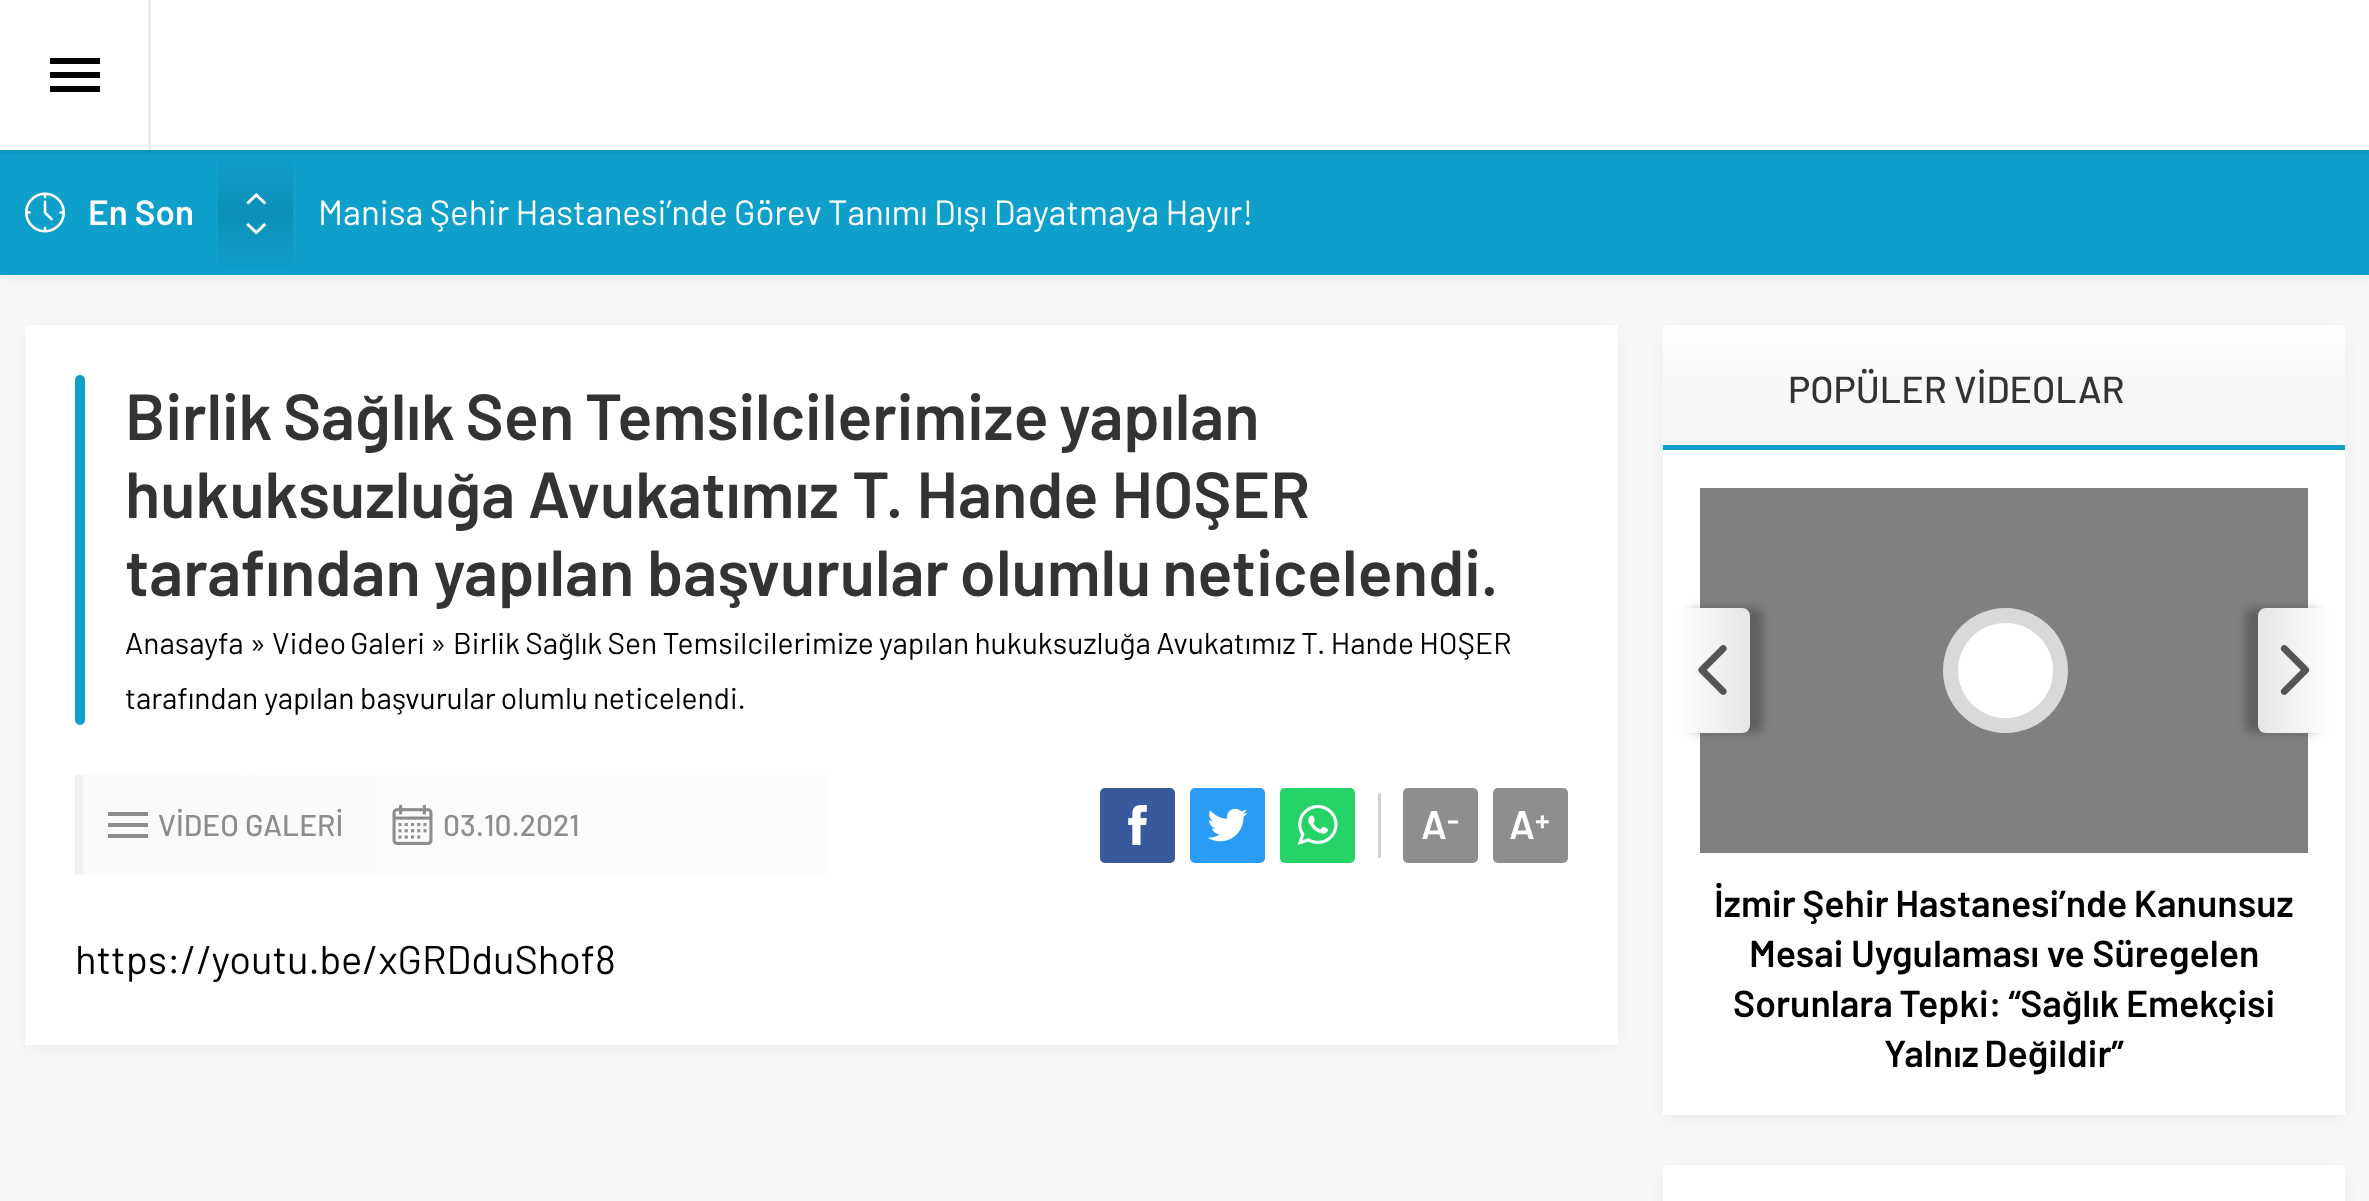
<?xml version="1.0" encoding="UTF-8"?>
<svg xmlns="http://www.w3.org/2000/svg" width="2369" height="1201">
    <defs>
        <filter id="blur1" x="-50%" y="-200%" width="200%" height="500%"><feGaussianBlur stdDeviation="10"/></filter>
        <linearGradient id="g1" gradientUnits="userSpaceOnUse" x1="255" y1="150" x2="255" y2="275"><stop offset="0" stop-color="#0E9FCB"/><stop offset="0.5" stop-color="#0D8FB7"/><stop offset="1" stop-color="#0E9FCB"/></linearGradient>
        <clipPath id="clip1"><rect x="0" y="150" width="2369" height="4"/></clipPath>
        <filter id="blur2" x="-50%" y="-200%" width="200%" height="500%"><feGaussianBlur stdDeviation="4"/></filter>
        <linearGradient id="g2" gradientUnits="userSpaceOnUse" x1="83" y1="825" x2="1568" y2="825"><stop offset="0" stop-color="#FAFAFA"/><stop offset="1" stop-color="#FFFFFF"/></linearGradient>
        <linearGradient id="g3" gradientUnits="userSpaceOnUse" x1="2004" y1="325" x2="2004" y2="450"><stop offset="0" stop-color="#FFFFFF"/><stop offset="0.5" stop-color="#F8F8F8"/></linearGradient>
        <linearGradient id="g4" gradientUnits="userSpaceOnUse" x1="1675" y1="670" x2="1750" y2="670"><stop offset="0" stop-color="#FFFFFF"/><stop offset="1" stop-color="#E6E6E6"/></linearGradient>
        <linearGradient id="g5" gradientUnits="userSpaceOnUse" x1="2258" y1="670" x2="2333" y2="670"><stop offset="0" stop-color="#E6E6E6"/><stop offset="1" stop-color="#FFFFFF"/></linearGradient>
    </defs>
    <rect width="100%" height="100%" fill="#F8F8F8"/>
    <rect x="0" y="155" width="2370" height="125" fill="#000000" fill-opacity="0.05" filter="url(#blur1)"/>
    <rect x="0" y="0" width="2369" height="150" fill="#FFFFFF"/>
    <rect x="0" y="150" width="2369" height="125" fill="#0E9FCB"/>
    <rect x="218" y="158" width="75" height="109" fill="url(#g1)"/>
    <g clip-path="url(#clip1)">
        <rect x="0" y="0" width="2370" height="150" fill="#000000" fill-opacity="0.15" filter="url(#blur2)"/>
    </g>
    <rect x="148" y="0" width="3" height="150" fill="#EEEEEE"/>
    <path d="M 50 92 V 86 H 100 V 92 Z M 50 78 V 72 H 100 V 78 Z M 50 58 H 100 V 64 H 50 Z" fill="#000000"/>
    <image x="25" y="192" width="40" height="41" href="img_01.png"/>
    <text x="88" y="225" font-family="Barlow" font-size="35" font-weight="600" fill="#FFFFFF">En Son</text>
    <image x="246" y="193" width="21" height="12" href="img_02.png"/>
    <image x="246" y="223" width="20" height="12" href="img_03.png"/>
    <text x="318" y="225" word-spacing="-0.75" font-family="Barlow" font-size="35" fill="#FFFFFF">Manisa Şehir Hastanesi’nde Görev Tanımı Dışı Dayatmaya Hayır!</text>
    <rect x="25" y="330" width="1593" height="720" fill="#000000" fill-opacity="0.05" filter="url(#blur1)"/>
    <rect x="25" y="325" width="1593" height="720" fill="#FFFFFF"/>
    <rect x="75" y="375" width="10" height="350" rx="5" fill="#0E9FCB"/>
    <text font-family="Barlow" font-size="65" font-weight="600" fill="#333333">
        <tspan x="125" y="440" word-spacing="-2.5">Birlik Sağlık Sen Temsilcilerimize yapılan</tspan>
        <tspan x="125" y="518">hukuksuzluğa Avukatımız T. Hande HOŞER</tspan>
        <tspan x="125" y="596">tarafından yapılan</tspan>
    </text>
    <text x="647" y="596" word-spacing="-2" font-family="Barlow" font-size="65" font-weight="600" fill="#333333">başvurular olumlu neticelendi.</text>
    <text x="125" y="654" font-family="Barlow" font-size="30" fill="#000000">Anasayfa »</text>
    <text x="272" y="654" word-spacing="-2" font-family="Barlow" font-size="30" fill="#000000">Video Galeri</text>
    <text x="430" y="654" font-family="Barlow" font-size="30" fill="#000000">»</text>
    <text x="453" y="654" word-spacing="-0.75" font-family="Barlow" font-size="30" fill="#000000">Birlik Sağlık Sen Temsilcilerimize yapılan hukuksuzluğa Avukatımız T. Hande HOŞER</text>
    <text x="125" y="709" font-family="Barlow" font-size="30" fill="#000000">tarafından yapılan</text>
    <text x="360" y="709" word-spacing="-1" font-family="Barlow" font-size="30" fill="#000000">başvurular olumlu neticelendi.</text>
    <rect x="83" y="775" width="743" height="100" fill="url(#g2)"/>
    <rect x="75" y="775" width="8" height="100" fill="#F1F1F1"/>
    <path d="M 108 838 V 834 H 148 V 838 Z M 108 827 V 823 H 148 V 827 Z M 108 812 H 148 V 816 H 108 Z" fill="#8D8D8D"/>
    <text x="158" y="836" font-family="Barlow" font-size="30" font-weight="500" fill="#8D8D8D">VİDEO GALERİ</text>
    <image x="392" y="805" width="41" height="40" href="img_04.png"/>
    <text x="443" y="836" font-family="Barlow" font-size="30" font-weight="500" fill="#8D8D8D">03.10.2021</text>
    <rect x="1100" y="788" width="75" height="75" rx="5" fill="#38599B"/>
    <image x="1128" y="805" width="19" height="40" href="img_05.png"/>
    <rect x="1190" y="788" width="75" height="75" rx="5" fill="#2A9CF6"/>
    <image x="1207" y="808" width="41" height="34" href="img_06.png"/>
    <rect x="1280" y="788" width="75" height="75" rx="5" fill="#25D366"/>
    <image x="1297" y="805" width="41" height="40" href="img_07.png"/>
    <rect x="1403" y="788" width="75" height="75" rx="5" fill="#8E8E8E"/>
    <rect x="1378" y="793" width="3" height="65" fill="#D0D0D0"/>
    <text x="1421" y="839" font-family="Barlow" font-size="40" font-weight="600" fill="#FFFFFF">A</text>
    <text x="1447" y="831" font-family="Barlow" font-size="30" font-weight="600" fill="#FFFFFF">-</text>
    <rect x="1493" y="788" width="75" height="75" rx="5" fill="#8E8E8E"/>
    <text x="1509" y="839" font-family="Barlow" font-size="40" font-weight="600" fill="#FFFFFF">A</text>
    <text x="1535" y="831" font-family="Barlow" font-size="30" font-weight="600" fill="#FFFFFF">+</text>
    <text x="75" y="974" font-family="Barlow" font-size="40" fill="#000000">https://youtu.be/xGRDduShof8</text>
    <rect x="1663" y="330" width="682" height="790" fill="#000000" fill-opacity="0.05" filter="url(#blur1)"/>
    <rect x="1663" y="450" width="682" height="665" fill="#FFFFFF"/>
    <rect x="1663" y="325" width="682" height="120" fill="url(#g3)"/>
    <text x="1788" y="403" font-family="Barlow" font-size="37.5" font-weight="500" fill="#333333">POPÜLER VİDEOLAR</text>
    <rect x="1663" y="445" width="682" height="5" fill="#0E9FCB"/>
    <rect x="1700" y="488" width="608" height="365" fill="#808080"/>
    <rect x="1688" y="608" width="75" height="125" rx="8" fill="#000000" fill-opacity="0.25" filter="url(#blur2)"/>
    <path d="M 1675 608 H 1742 C 1746.5 608 1750 611.5 1750 616 V 725 C 1750 729.5 1746.5 733 1742 733 H 1675 Z" fill="url(#g4)"/>
    <image x="1698" y="645" width="29" height="50" href="img_08.png"/>
    <rect x="2245" y="608" width="75" height="125" rx="8" fill="#000000" fill-opacity="0.25" filter="url(#blur2)"/>
    <path d="M 2266 608 H 2333 V 733 H 2266 C 2261.5 733 2258 729.5 2258 725 V 616 C 2258 611.5 2261.5 608 2266 608 Z" fill="url(#g5)"/>
    <image x="2280" y="645" width="30" height="50" href="img_09.png"/>
    <circle cx="2005.5" cy="670.5" r="62.5" fill="#D9D9D9"/>
    <circle cx="2005.5" cy="670.5" r="47.5" fill="#FFFFFF"/>
    <text x="1714" y="917" word-spacing="-1" font-family="Barlow" font-size="37.5" font-weight="600" fill="#000000">İzmir Şehir Hastanesi’nde Kanunsuz</text>
    <text x="1749" y="967" font-family="Barlow" font-size="37.5" font-weight="600" fill="#000000">Mesai Uygulaması ve Süregelen</text>
    <text x="1733" y="1017" word-spacing="-1" font-family="Barlow" font-size="37.5" font-weight="600" fill="#000000">Sorunlara Tepki: “Sağlık Emekçisi</text>
    <text x="1884" y="1067" word-spacing="-2" font-family="Barlow" font-size="37.5" font-weight="600" fill="#000000">Yalnız Değildir”</text>
    <rect x="1663" y="1170" width="682" height="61" fill="#000000" fill-opacity="0.05" filter="url(#blur1)"/>
    <rect x="1663" y="1165" width="682" height="36" fill="#FFFFFF"/>
</svg>
